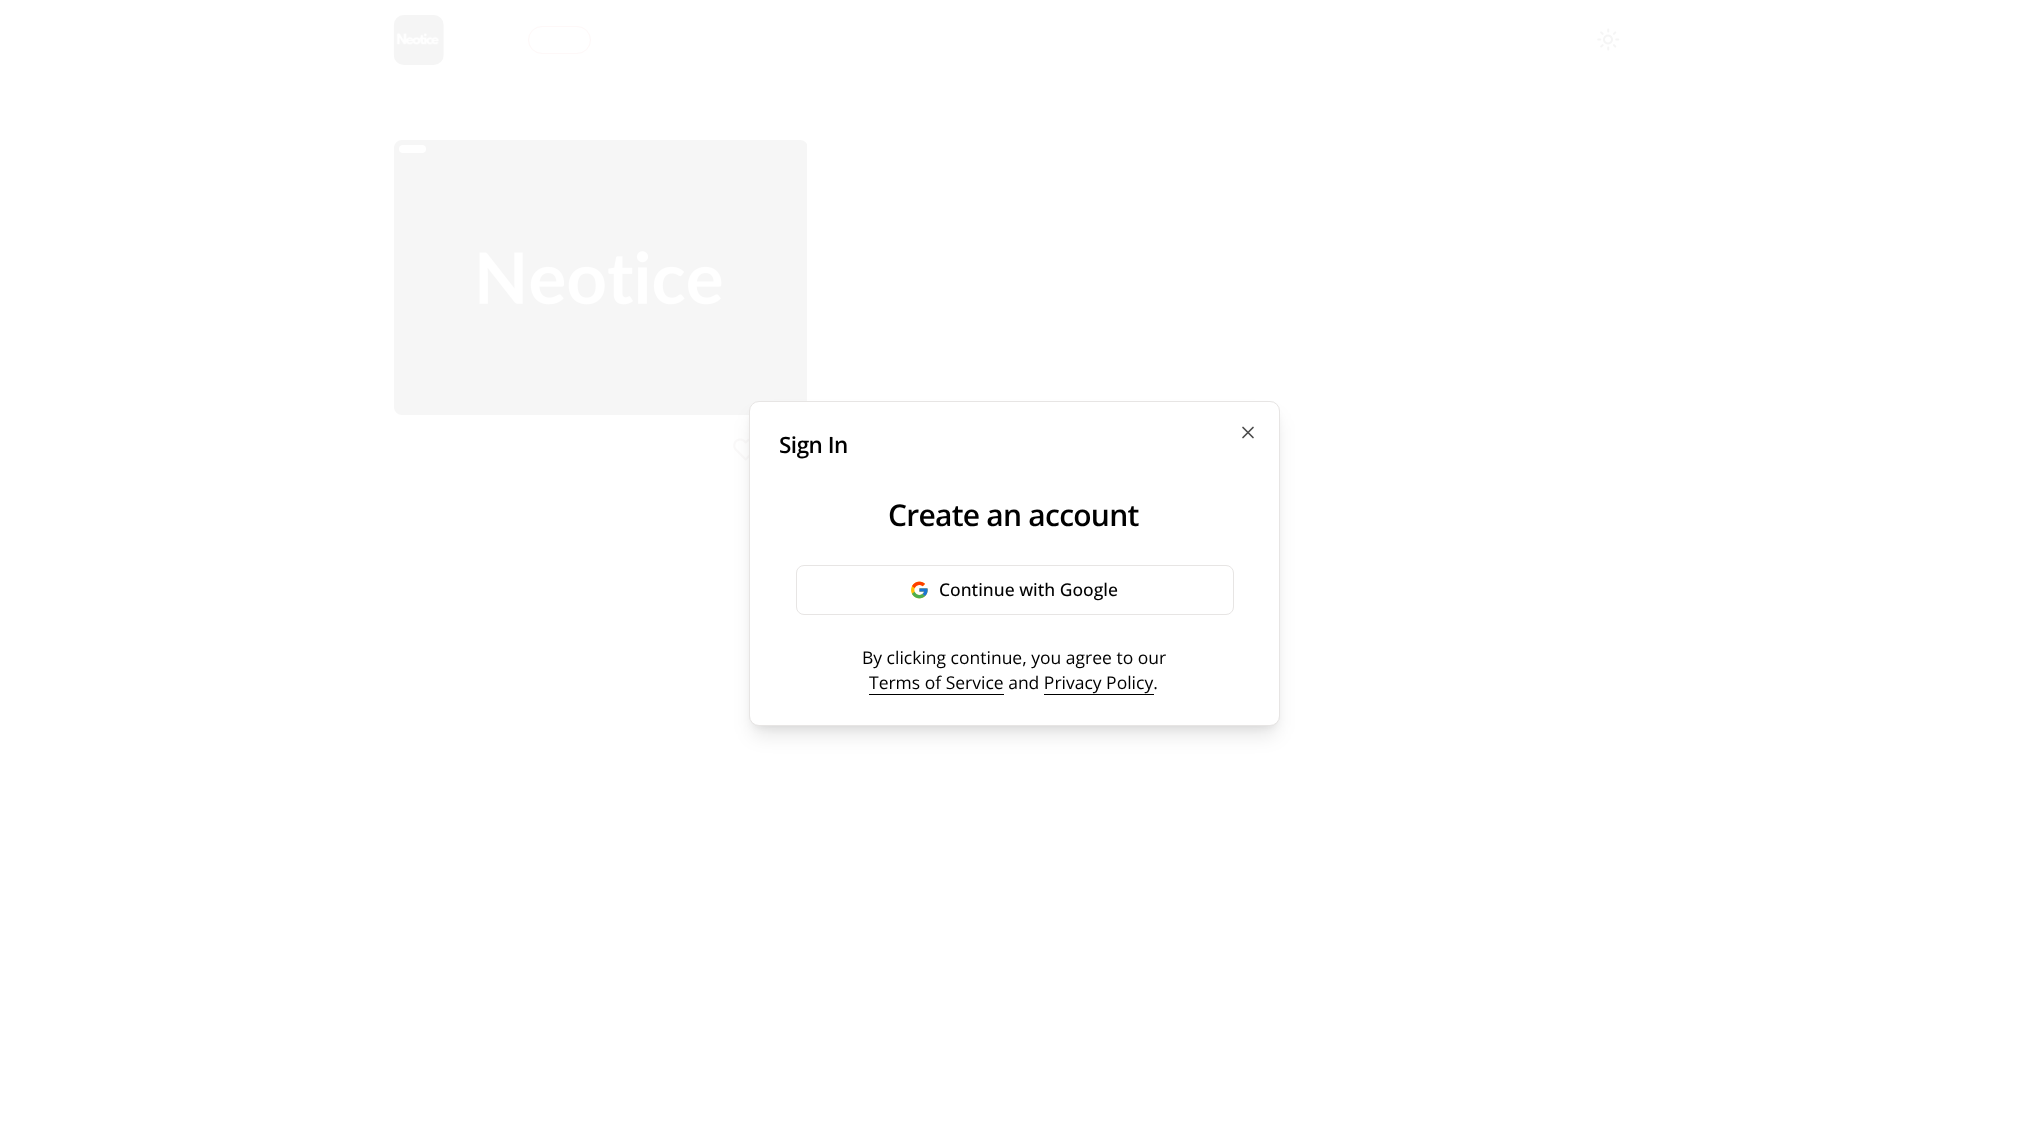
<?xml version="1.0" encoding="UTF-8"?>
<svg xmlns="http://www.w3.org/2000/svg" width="2027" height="1127">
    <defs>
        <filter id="blur1" x="-50%" y="-200%" width="200%" height="500%"><feGaussianBlur stdDeviation="4"/></filter>
        <filter id="blur2" x="-50%" y="-200%" width="200%" height="500%"><feGaussianBlur stdDeviation="9.5"/></filter>
    </defs>
    <rect width="100%" height="100%" fill="#FFFFFF"/>
    <image x="393" y="15" width="51" height="50" href="img_01.png"/>
    <rect x="528.5" y="26.5" width="62" height="27" rx="13.5" fill="none" stroke="#FEF8F8"/>
    <image x="1597" y="28" width="23" height="23" href="img_02.png"/>
    <image x="394" y="140" width="413" height="275" href="img_03.png"/>
    <rect x="399" y="145" width="27" height="8" rx="4" fill="#FFFFFF"/>
    <image x="733" y="438" width="16" height="23" href="img_04.png"/>
    <rect x="749.5" y="401.5" width="530" height="324" rx="9.5" fill="none" stroke="#FAFAFA"/>
    <rect x="754" y="411" width="521" height="315" rx="5" fill="#000000" fill-opacity="0.1" filter="url(#blur1)"/>
    <rect x="753" y="418" width="523" height="317" rx="6" fill="#000000" fill-opacity="0.1" filter="url(#blur2)"/>
    <rect x="749.5" y="401.5" width="530" height="324" rx="9.5" fill="#FFFFFF" stroke="#E7E5E4"/>
    <path d="M 1253 427.5 L 1243 437.5 M 1243 427.5 L 1253 437.5" fill="none" stroke="#4D4D4D" stroke-width="1.7" stroke-linecap="round" stroke-linejoin="round"/>
    <text x="779" y="453" font-family="Open Sans" font-size="22.5" font-weight="600" letter-spacing="-0.5" fill="#000000">Sign In</text>
    <text x="888" y="526" font-family="Open Sans" font-size="30" font-weight="600" letter-spacing="-0.75" fill="#000000">Create an account</text>
    <rect x="796.5" y="565.5" width="437" height="49" rx="7.5" fill="none" stroke="#E7E5E4"/>
    <image x="911" y="581" width="17" height="18" href="img_05.png"/>
    <text x="939" y="596" font-family="Open Sans" font-size="17.5" font-weight="500" fill="#000000">Continue with Google</text>
    <text x="862" y="664" font-family="Open Sans" font-size="17.5" fill="#000000">By clicking continue, you agree to our</text>
    <text x="869" y="689" font-family="Open Sans" font-size="17.5" fill="#000000">Terms of Service and Privacy Policy.</text>
    <rect x="869" y="694" width="135" height="1" fill="#000000"/>
    <rect x="1044" y="694" width="110" height="1" fill="#000000"/>
</svg>
